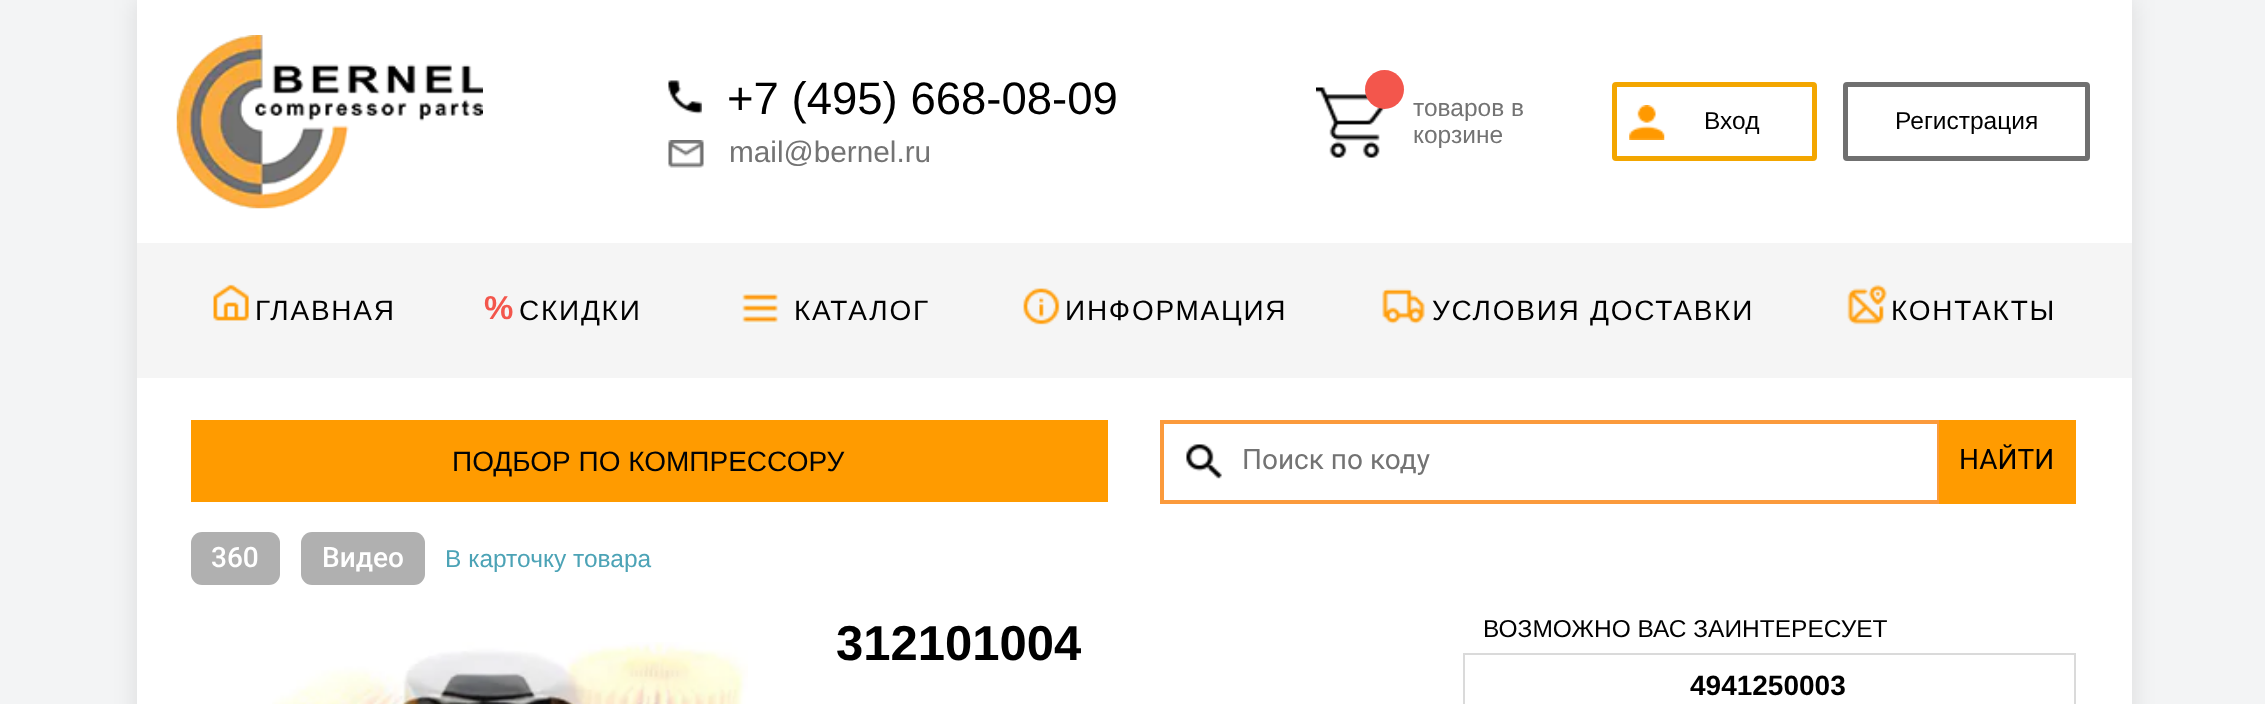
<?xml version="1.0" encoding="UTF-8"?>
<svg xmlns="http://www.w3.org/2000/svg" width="2265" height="704">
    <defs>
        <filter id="blur1" x="-50%" y="-200%" width="200%" height="500%"><feGaussianBlur stdDeviation="12"/></filter>
    </defs>
    <rect width="100%" height="100%" fill="#F3F4F5"/>
    <rect x="137" y="0" width="1995" height="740" fill="#000000" fill-opacity="0.1" filter="url(#blur1)"/>
    <rect x="137" y="0" width="1995" height="704" fill="#FFFFFF"/>
    <image x="176" y="35" width="307" height="174" href="img_01.png"/>
    <image x="668" y="80" width="34" height="34" href="img_02.png"/>
    <text x="727" y="114" font-family="Liberation Sans" font-size="45.5" fill="#000000">+7 (495) 668-08-09</text>
    <image x="668" y="140" width="36" height="28" href="img_03.png"/>
    <text x="729" y="162" font-family="Liberation Sans" font-size="29.75" fill="#737373">mail@bernel.ru</text>
    <image x="1316" y="87" width="69" height="71" href="img_04.png"/>
    <circle cx="1384.5" cy="89.5" r="19.5" fill="#F3564C"/>
    <text font-family="Liberation Sans" font-size="24.5" fill="#737373">
        <tspan x="1413" y="116">товаров в</tspan>
        <tspan x="1413" y="143">корзине</tspan>
    </text>
    <image x="1629" y="105" width="36" height="35" href="img_05.png"/>
    <rect x="1614.5" y="84.5" width="200" height="74" rx="1.5" fill="none" stroke="#F3A600" stroke-width="5"/>
    <text x="1704" y="129" font-family="Liberation Sans" font-size="24.5" fill="#000000">Вход</text>
    <rect x="1845.5" y="84.5" width="242" height="74" rx="1.5" fill="none" stroke="#707070" stroke-width="5"/>
    <text x="1895" y="129" font-family="Liberation Sans" font-size="24.5" fill="#000000">Регистрация</text>
    <rect x="137" y="243" width="1995" height="135" fill="#F5F5F5"/>
    <image x="213" y="284" width="36" height="37" href="img_06.png"/>
    <text x="255" y="320" font-family="Liberation Sans" font-size="28" letter-spacing="1.75" fill="#000000">ГЛАВНАЯ</text>
    <text x="484" y="319" font-family="Liberation Sans" font-size="33" font-weight="700" letter-spacing="1.75" fill="#F3564C">%</text>
    <text x="519" y="320" font-family="Liberation Sans" font-size="28" letter-spacing="1.75" fill="#000000">СКИДКИ</text>
    <image x="740" y="292" width="40" height="32" href="img_07.png"/>
    <text x="794" y="320" font-family="Liberation Sans" font-size="28" letter-spacing="1.75" fill="#000000">КАТАЛОГ</text>
    <image x="1023" y="288" width="37" height="37" href="img_08.png"/>
    <text x="1065" y="320" font-family="Liberation Sans" font-size="28" letter-spacing="1.75" fill="#000000">ИНФОРМАЦИЯ</text>
    <image x="1382" y="288" width="43" height="36" href="img_09.png"/>
    <text x="1432" y="320" font-family="Liberation Sans" font-size="28" letter-spacing="1.75" fill="#000000">УСЛОВИЯ ДОСТАВКИ</text>
    <image x="1847" y="284" width="40" height="41" href="img_10.png"/>
    <text x="1891" y="320" font-family="Liberation Sans" font-size="28" letter-spacing="1.75" fill="#000000">КОНТАКТЫ</text>
    <rect x="191" y="420" width="917" height="82" fill="#FF9B00"/>
    <text x="452" y="471" font-family="Liberation Sans" font-size="28" fill="#000306">ПОДБОР ПО КОМПРЕССОРУ</text>
    <rect x="1162" y="422" width="777" height="80" fill="none" stroke="#FB9A3C" stroke-width="4"/>
    <image x="1186" y="444" width="36" height="35" href="img_11.png"/>
    <text x="1242" y="469" font-family="Roboto" font-size="28" fill="#737373">Поиск по коду</text>
    <rect x="1939" y="420" width="137" height="84" fill="#FF9B00"/>
    <text x="1959" y="469" font-family="Roboto" font-size="28" fill="#000000">НАЙТИ</text>
    <rect x="191" y="532" width="89" height="53" rx="11" fill="#B0B0B0"/>
    <text x="211" y="567" font-family="Roboto" font-size="28" font-weight="500" fill="#FFFFFF">360</text>
    <rect x="301" y="532" width="124" height="53" rx="11" fill="#B0B0B0"/>
    <text x="322" y="567" font-family="Roboto" font-size="28" font-weight="500" fill="#FFFFFF">Видео</text>
    <text x="445" y="567" font-family="Liberation Sans" font-size="24.5" fill="#4CA3B6">В карточку товара</text>
    <image x="272" y="642" width="476" height="62" href="img_12.png"/>
    <text x="836" y="660" font-family="Liberation Sans" font-size="49" font-weight="700" fill="#000000">312101004</text>
    <text x="1483" y="637" font-family="Liberation Sans" font-size="24.5" fill="#000000">ВОЗМОЖНО ВАС ЗАИНТЕРЕСУЕТ</text>
    <rect x="1464" y="654" width="611" height="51" fill="none" stroke="#DADADA" stroke-width="2"/>
    <text x="1690" y="695" font-family="Liberation Sans" font-size="28" font-weight="700" fill="#000000">4941250003</text>
</svg>
